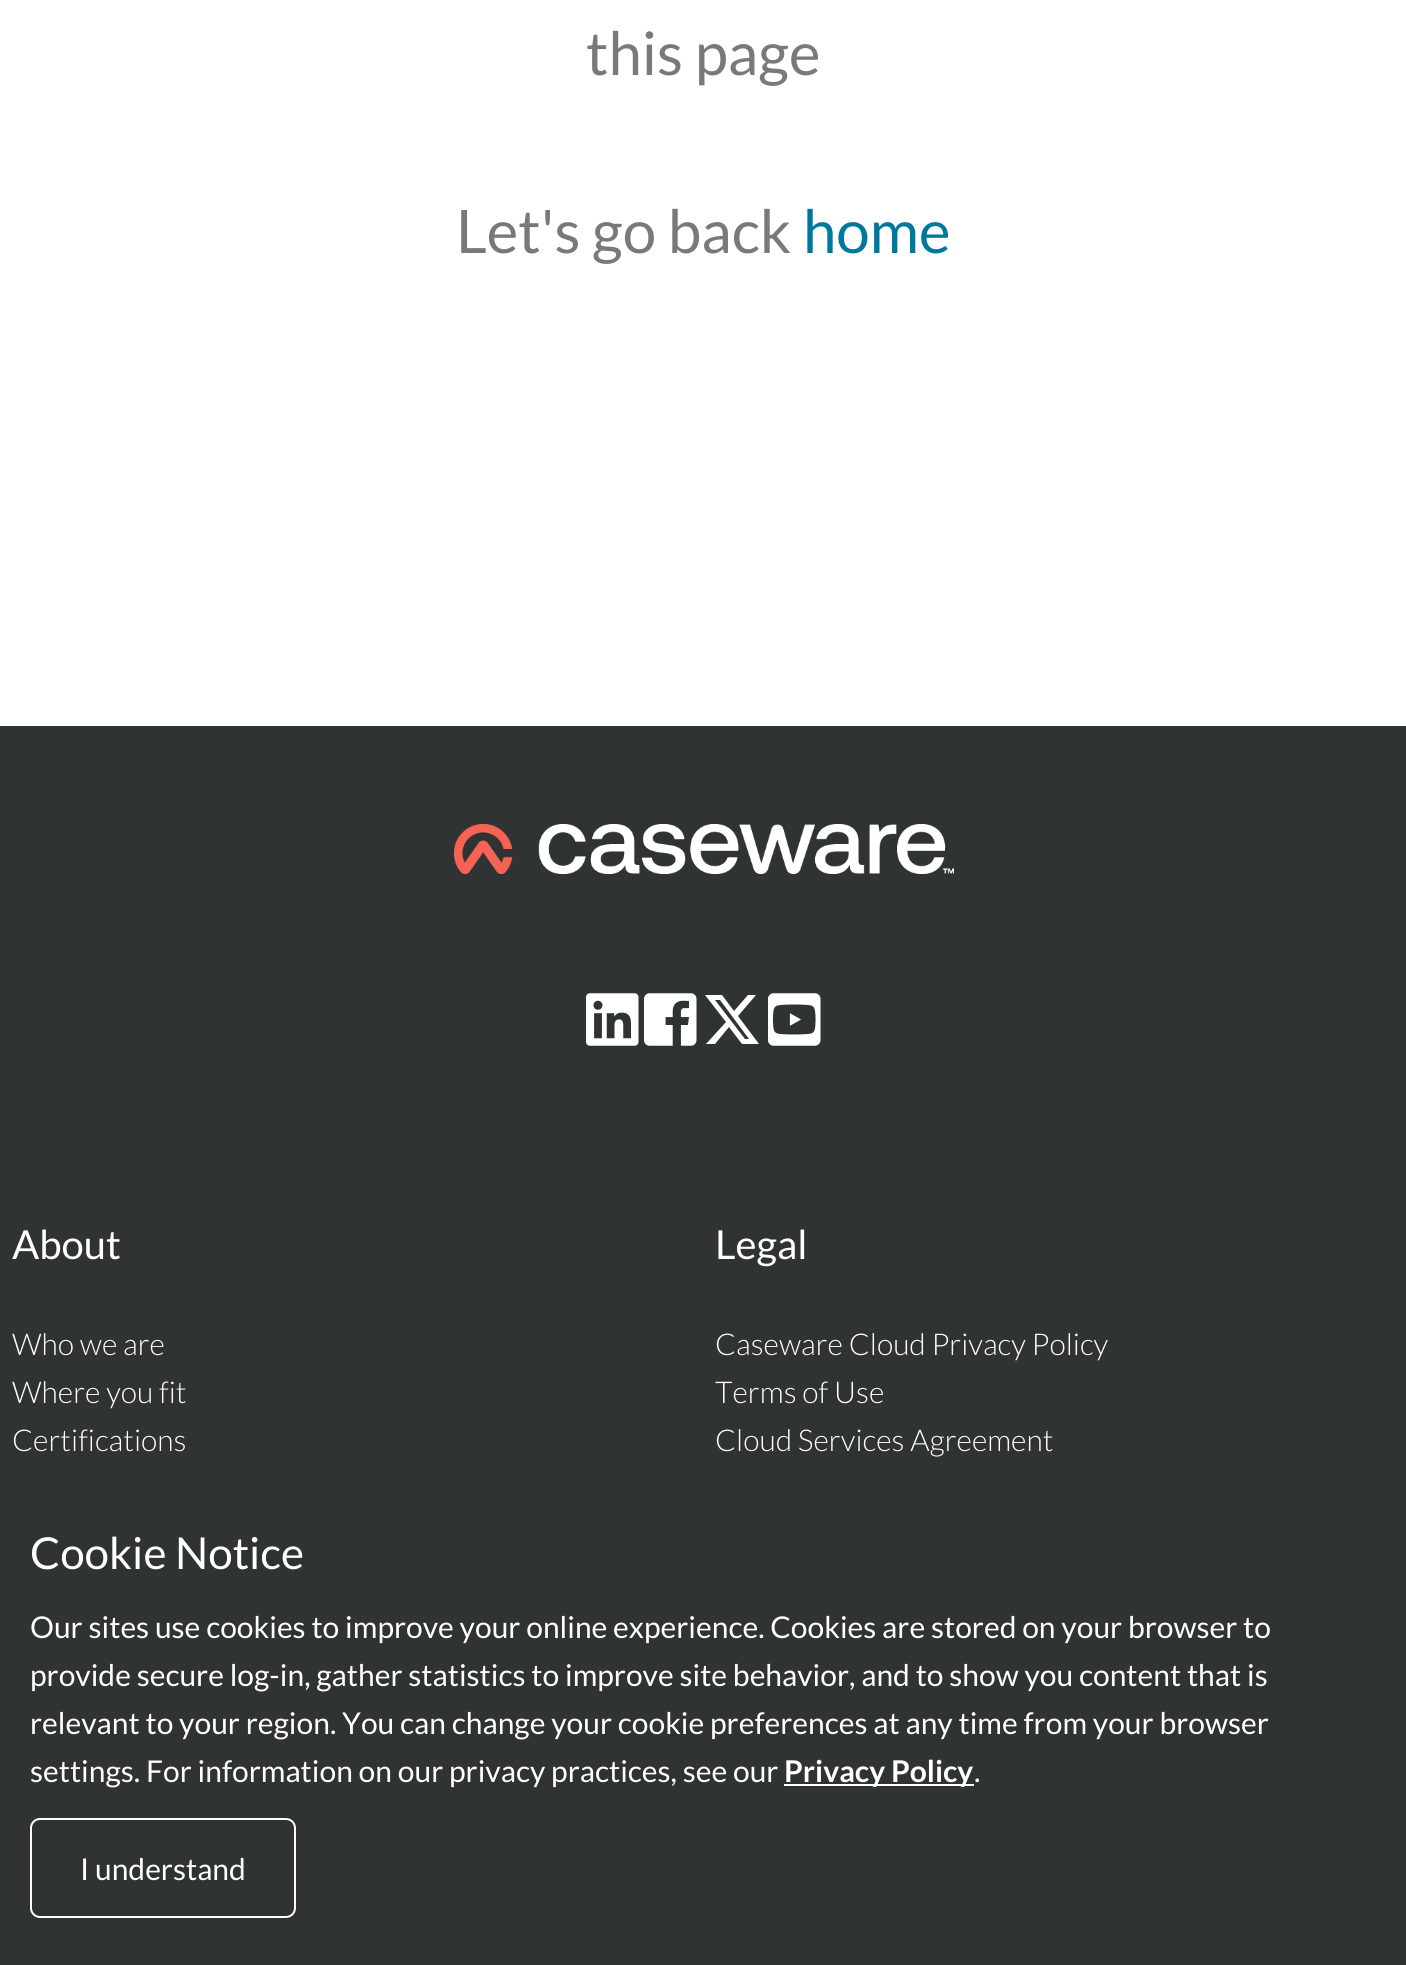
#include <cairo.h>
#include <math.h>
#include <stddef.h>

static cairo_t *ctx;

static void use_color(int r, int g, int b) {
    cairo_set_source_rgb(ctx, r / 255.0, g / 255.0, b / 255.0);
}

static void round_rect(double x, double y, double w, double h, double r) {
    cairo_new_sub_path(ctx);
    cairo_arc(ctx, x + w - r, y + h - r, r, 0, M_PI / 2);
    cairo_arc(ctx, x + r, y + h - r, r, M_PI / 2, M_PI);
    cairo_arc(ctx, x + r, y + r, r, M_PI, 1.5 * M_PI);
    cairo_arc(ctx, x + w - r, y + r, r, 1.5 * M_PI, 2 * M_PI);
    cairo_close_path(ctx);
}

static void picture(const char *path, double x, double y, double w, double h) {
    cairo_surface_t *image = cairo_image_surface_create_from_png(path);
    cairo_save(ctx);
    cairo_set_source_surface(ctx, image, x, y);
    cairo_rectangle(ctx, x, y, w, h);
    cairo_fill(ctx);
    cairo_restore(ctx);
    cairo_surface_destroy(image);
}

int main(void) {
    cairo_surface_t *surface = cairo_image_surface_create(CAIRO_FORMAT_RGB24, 1406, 1965);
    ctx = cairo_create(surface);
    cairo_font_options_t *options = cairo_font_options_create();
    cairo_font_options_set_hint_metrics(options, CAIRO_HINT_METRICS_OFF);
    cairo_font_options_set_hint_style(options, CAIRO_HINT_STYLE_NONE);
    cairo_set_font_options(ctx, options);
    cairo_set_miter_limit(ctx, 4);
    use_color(255, 255, 255);
    cairo_paint(ctx);
    cairo_select_font_face(ctx, "Lato", CAIRO_FONT_SLANT_NORMAL, CAIRO_FONT_WEIGHT_NORMAL);
    cairo_set_font_size(ctx, 60);
    use_color(121, 121, 121);
    cairo_move_to(ctx, 586, 75);
    cairo_show_text(ctx, "this page");
    cairo_move_to(ctx, 456, 253);
    cairo_show_text(ctx, "Let's go back");
    use_color(0, 120, 156);
    cairo_move_to(ctx, 803, 253);
    cairo_show_text(ctx, "home");
    use_color(48, 51, 51);
    cairo_rectangle(ctx, 0, 726, 1406, 1239);
    cairo_fill(ctx);
    picture("img1.png", 454, 824, 500, 50);
    picture("img2.png", 586, 993, 53, 53);
    picture("img3.png", 644, 993, 53, 53);
    use_color(255, 255, 255);
    cairo_new_path(ctx);
    cairo_move_to(ctx, 748, 995);
    cairo_line_to(ctx, 756, 995);
    cairo_line_to(ctx, 748, 995);
    cairo_line_to(ctx, 756, 995);
    cairo_line_to(ctx, 738, 1016);
    cairo_line_to(ctx, 759, 1044);
    cairo_line_to(ctx, 742, 1044);
    cairo_line_to(ctx, 729, 1027);
    cairo_line_to(ctx, 715, 1044);
    cairo_line_to(ctx, 706, 1044);
    cairo_line_to(ctx, 726, 1022);
    cairo_line_to(ctx, 705, 995);
    cairo_line_to(ctx, 722, 995);
    cairo_line_to(ctx, 734, 1011);
    cairo_close_path(ctx);
    cairo_move_to(ctx, 745, 1039);
    cairo_line_to(ctx, 749, 1039);
    cairo_line_to(ctx, 745, 1039);
    cairo_line_to(ctx, 749, 1039);
    cairo_line_to(ctx, 720, 1000);
    cairo_line_to(ctx, 715, 1000);
    cairo_close_path(ctx);
    cairo_fill(ctx);
    picture("img4.png", 768, 993, 53, 53);
    cairo_set_font_size(ctx, 40);
    cairo_move_to(ctx, 12, 1259);
    cairo_show_text(ctx, "About");
    cairo_select_font_face(ctx, "Lato Light", CAIRO_FONT_SLANT_NORMAL, CAIRO_FONT_WEIGHT_NORMAL);
    cairo_set_font_size(ctx, 30);
    cairo_move_to(ctx, 12, 1355);
    cairo_show_text(ctx, "Who we are");
    cairo_move_to(ctx, 12, 1403);
    cairo_show_text(ctx, "Where you fit");
    cairo_move_to(ctx, 12, 1451);
    cairo_show_text(ctx, "Certifications");
    cairo_select_font_face(ctx, "Lato", CAIRO_FONT_SLANT_NORMAL, CAIRO_FONT_WEIGHT_NORMAL);
    cairo_set_font_size(ctx, 40);
    cairo_move_to(ctx, 715, 1259);
    cairo_show_text(ctx, "Legal");
    cairo_select_font_face(ctx, "Lato Light", CAIRO_FONT_SLANT_NORMAL, CAIRO_FONT_WEIGHT_NORMAL);
    cairo_set_font_size(ctx, 30);
    cairo_move_to(ctx, 715, 1355);
    cairo_show_text(ctx, "Caseware Cloud Privacy Policy");
    cairo_move_to(ctx, 715, 1403);
    cairo_show_text(ctx, "Terms of Use");
    cairo_move_to(ctx, 715, 1451);
    cairo_show_text(ctx, "Cloud Services Agreement");
    cairo_select_font_face(ctx, "Lato", CAIRO_FONT_SLANT_NORMAL, CAIRO_FONT_WEIGHT_NORMAL);
    cairo_set_font_size(ctx, 44);
    cairo_move_to(ctx, 30, 1569);
    cairo_show_text(ctx, "Cookie Notice");
    cairo_set_font_size(ctx, 30);
    cairo_move_to(ctx, 30, 1638);
    cairo_show_text(ctx, "Our sites use cookies to improve your online experience. Cookies are stored on your browser to");
    cairo_move_to(ctx, 30, 1686);
    cairo_show_text(ctx, "provide secure log-in, gather statistics to improve site behavior, and to show you content that is");
    cairo_move_to(ctx, 30, 1734);
    cairo_show_text(ctx, "relevant to your region. You can change your cookie preferences at any time from your browser");
    cairo_move_to(ctx, 30, 1782);
    cairo_show_text(ctx, "settings. For information on our privacy practices, see our");
    cairo_rectangle(ctx, 784, 1784, 190, 2);
    cairo_fill(ctx);
    cairo_select_font_face(ctx, "Lato", CAIRO_FONT_SLANT_NORMAL, CAIRO_FONT_WEIGHT_BOLD);
    cairo_move_to(ctx, 784, 1782);
    cairo_show_text(ctx, "Privacy Policy");
    cairo_select_font_face(ctx, "Lato", CAIRO_FONT_SLANT_NORMAL, CAIRO_FONT_WEIGHT_NORMAL);
    cairo_move_to(ctx, 974, 1782);
    cairo_show_text(ctx, ".");
    round_rect(31, 1819, 264, 98, 9);
    cairo_stroke(ctx);
    cairo_move_to(ctx, 80, 1880);
    cairo_show_text(ctx, "I understand");
    cairo_surface_write_to_png(surface, "result.png");
    cairo_font_options_destroy(options);
    cairo_destroy(ctx);
    cairo_surface_destroy(surface);
    return 0;
}
